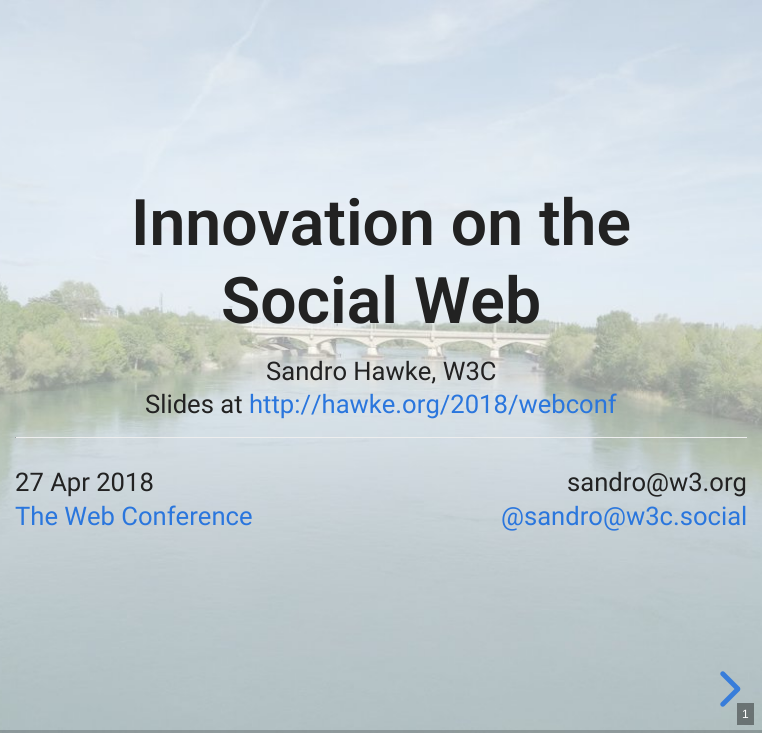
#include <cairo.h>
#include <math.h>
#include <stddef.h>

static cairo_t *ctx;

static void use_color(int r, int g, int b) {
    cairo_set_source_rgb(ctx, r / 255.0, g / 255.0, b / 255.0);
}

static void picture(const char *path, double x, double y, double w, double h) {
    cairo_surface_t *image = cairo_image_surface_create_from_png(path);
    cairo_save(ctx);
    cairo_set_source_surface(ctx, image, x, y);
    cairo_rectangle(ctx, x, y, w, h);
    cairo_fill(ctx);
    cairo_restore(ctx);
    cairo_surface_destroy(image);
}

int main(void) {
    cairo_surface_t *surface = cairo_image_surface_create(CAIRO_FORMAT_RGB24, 762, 733);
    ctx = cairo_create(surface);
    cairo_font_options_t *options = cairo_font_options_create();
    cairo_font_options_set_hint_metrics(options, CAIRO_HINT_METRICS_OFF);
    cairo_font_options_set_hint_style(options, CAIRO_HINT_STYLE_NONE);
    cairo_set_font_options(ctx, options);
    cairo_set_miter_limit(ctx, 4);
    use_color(255, 255, 255);
    cairo_paint(ctx);
    picture("img1.png", 0, 0, 762, 733);
    cairo_select_font_face(ctx, "Roboto SemiBold", CAIRO_FONT_SLANT_NORMAL, CAIRO_FONT_WEIGHT_NORMAL);
    cairo_set_font_size(ctx, 64.25);
    use_color(34, 34, 34);
    cairo_move_to(ctx, 131, 245);
    cairo_show_text(ctx, "Innovation on the");
    cairo_move_to(ctx, 221, 323);
    cairo_show_text(ctx, "Social Web");
    cairo_select_font_face(ctx, "Roboto", CAIRO_FONT_SLANT_NORMAL, CAIRO_FONT_WEIGHT_NORMAL);
    cairo_set_font_size(ctx, 25.6);
    cairo_move_to(ctx, 266, 380);
    cairo_show_text(ctx, "Sandro Hawke, W3C");
    cairo_move_to(ctx, 145, 413);
    cairo_show_text(ctx, "Slides at");
    use_color(42, 118, 221);
    cairo_move_to(ctx, 249, 413);
    cairo_show_text(ctx, "http://hawke.org/2018/webconf");
    use_color(238, 238, 238);
    cairo_rectangle(ctx, 15, 437, 732, 1);
    cairo_fill(ctx);
    use_color(159, 159, 159);
    cairo_rectangle(ctx, 15, 437, 1, 1);
    cairo_fill(ctx);
    use_color(34, 34, 34);
    cairo_move_to(ctx, 15, 491);
    cairo_show_text(ctx, "27 Apr 2018");
    use_color(42, 118, 221);
    cairo_move_to(ctx, 15, 525);
    cairo_show_text(ctx, "The Web Conference");
    use_color(34, 34, 34);
    cairo_move_to(ctx, 567, 491);
    cairo_show_text(ctx, "sandro@w3.org");
    use_color(42, 118, 221);
    cairo_move_to(ctx, 501, 525);
    cairo_show_text(ctx, "@sandro@w3c.social");
    use_color(56, 125, 218);
    cairo_new_path(ctx);
    cairo_move_to(ctx, 736, 690.5);
    cairo_line_to(ctx, 721, 675.5);
    cairo_curve_to(ctx, 720, 674.5, 720, 673, 721, 672);
    cairo_curve_to(ctx, 722, 671, 723.5, 671, 724.5, 672);
    cairo_line_to(ctx, 739.5, 687);
    cairo_curve_to(ctx, 740.5, 688, 740.5, 689.5, 739.5, 690.5);
    cairo_curve_to(ctx, 738.5, 691.5, 737, 691.5, 736, 690.5);
    cairo_close_path(ctx);
    cairo_fill(ctx);
    cairo_new_path(ctx);
    cairo_move_to(ctx, 739.5, 691);
    cairo_line_to(ctx, 724.5, 706);
    cairo_curve_to(ctx, 723.5, 707, 722, 707, 721, 706);
    cairo_curve_to(ctx, 720, 705, 720, 703.5, 721, 702.5);
    cairo_line_to(ctx, 736, 687.5);
    cairo_curve_to(ctx, 737, 686.5, 738.5, 686.5, 739.5, 687.5);
    cairo_curve_to(ctx, 740.5, 688.5, 740.5, 690, 739.5, 691);
    cairo_close_path(ctx);
    cairo_fill(ctx);
    cairo_set_source_rgba(ctx, 0, 0, 0, 0.4);
    cairo_rectangle(ctx, 737, 703, 17, 22);
    cairo_fill(ctx);
    cairo_select_font_face(ctx, "Liberation Sans", CAIRO_FONT_SLANT_NORMAL, CAIRO_FONT_WEIGHT_NORMAL);
    cairo_set_font_size(ctx, 12);
    use_color(255, 255, 255);
    cairo_move_to(ctx, 742, 718);
    cairo_show_text(ctx, "1");
    cairo_set_source_rgba(ctx, 0, 0, 0, 0.2);
    cairo_rectangle(ctx, 0, 730, 762, 3);
    cairo_fill(ctx);
    cairo_surface_write_to_png(surface, "result.png");
    cairo_font_options_destroy(options);
    cairo_destroy(ctx);
    cairo_surface_destroy(surface);
    return 0;
}
